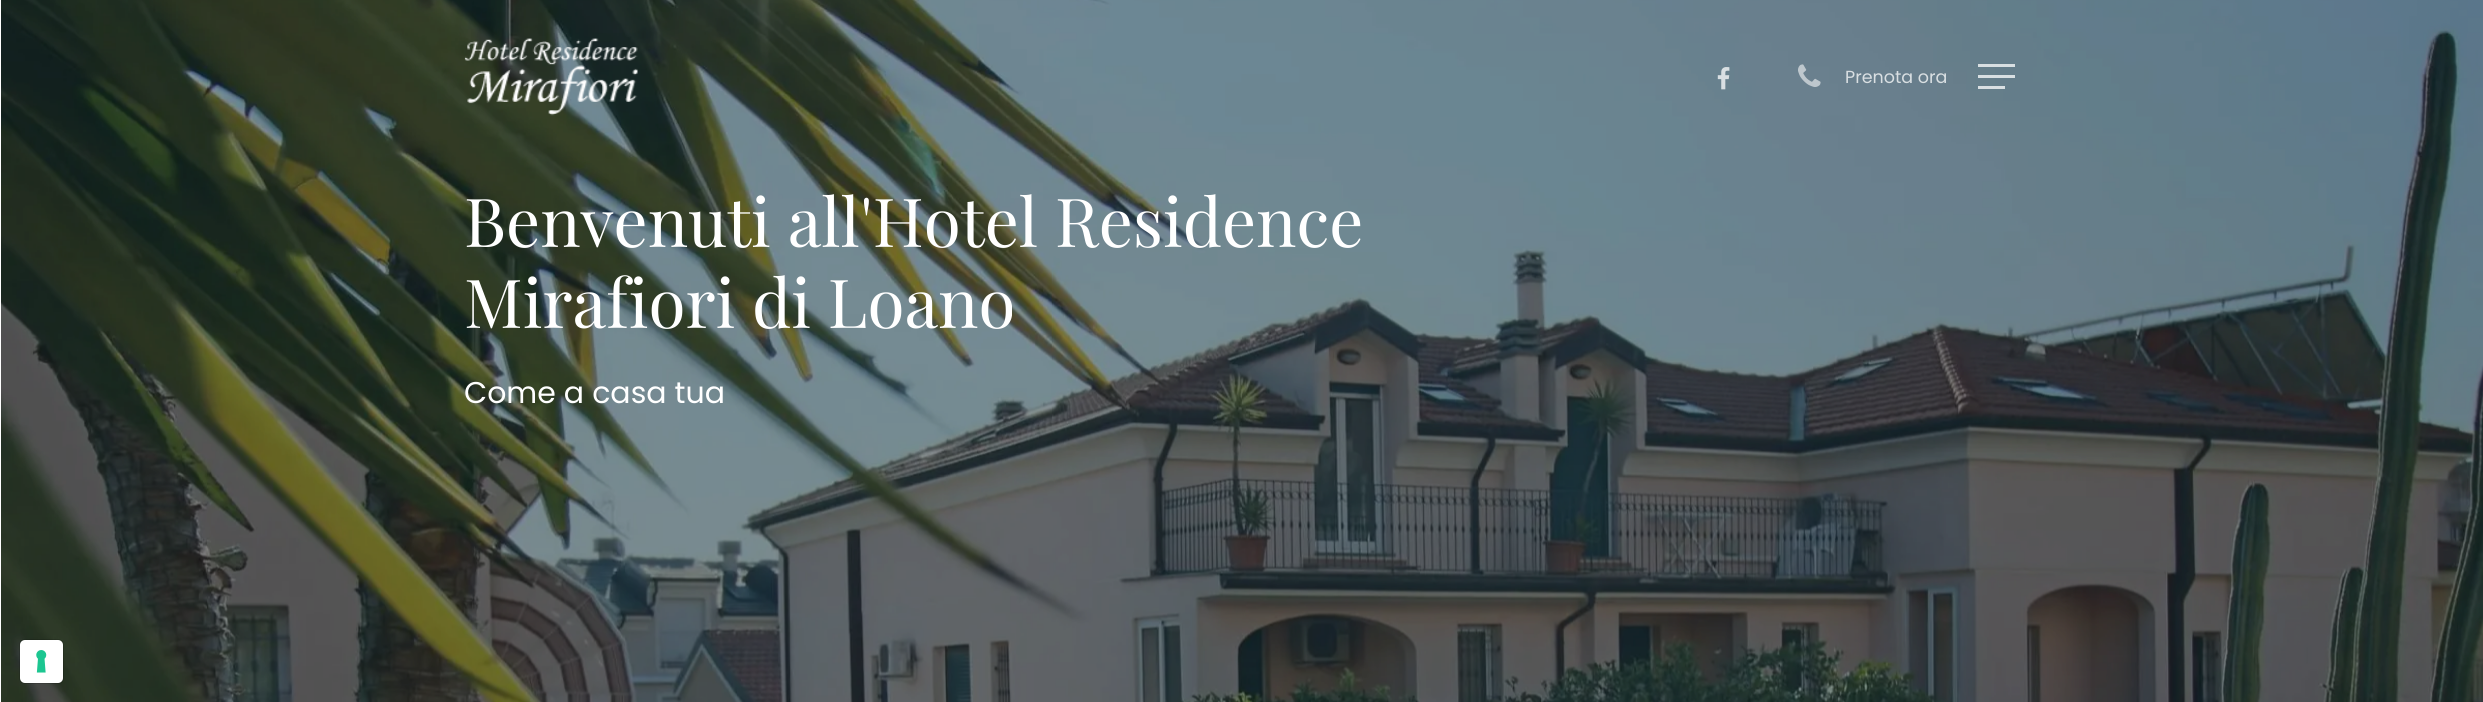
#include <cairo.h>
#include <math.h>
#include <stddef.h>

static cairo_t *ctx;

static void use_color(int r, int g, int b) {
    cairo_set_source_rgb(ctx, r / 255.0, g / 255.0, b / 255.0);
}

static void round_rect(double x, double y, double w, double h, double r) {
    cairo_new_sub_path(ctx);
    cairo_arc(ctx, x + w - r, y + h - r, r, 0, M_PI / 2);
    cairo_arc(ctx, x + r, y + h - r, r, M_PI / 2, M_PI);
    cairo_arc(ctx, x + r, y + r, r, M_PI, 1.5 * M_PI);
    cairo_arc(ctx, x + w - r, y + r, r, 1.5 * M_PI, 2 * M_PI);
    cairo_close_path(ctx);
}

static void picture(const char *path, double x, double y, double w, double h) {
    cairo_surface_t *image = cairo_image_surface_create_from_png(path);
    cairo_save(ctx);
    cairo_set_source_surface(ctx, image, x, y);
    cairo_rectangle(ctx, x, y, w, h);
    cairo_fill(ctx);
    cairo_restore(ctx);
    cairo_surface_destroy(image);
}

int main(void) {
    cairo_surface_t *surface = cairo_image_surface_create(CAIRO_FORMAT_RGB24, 2483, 702);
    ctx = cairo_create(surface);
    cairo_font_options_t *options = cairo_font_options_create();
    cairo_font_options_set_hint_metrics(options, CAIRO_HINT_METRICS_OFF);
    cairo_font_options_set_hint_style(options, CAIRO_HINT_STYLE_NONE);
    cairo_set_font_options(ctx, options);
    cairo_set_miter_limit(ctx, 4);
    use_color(255, 255, 255);
    cairo_paint(ctx);
    picture("img4.png", 1, 0, 2482, 702);
    picture("img1.png", 464, 38, 174, 78);
    picture("img2.png", 1717, 67, 13, 23);
    picture("img3.png", 1798, 64, 23, 23);
    cairo_select_font_face(ctx, "Poppins", CAIRO_FONT_SLANT_NORMAL, CAIRO_FONT_WEIGHT_NORMAL);
    cairo_set_font_size(ctx, 17.5);
    use_color(217, 223, 226);
    cairo_move_to(ctx, 1845, 83);
    cairo_show_text(ctx, "Prenota ora");
    use_color(216, 223, 226);
    cairo_rectangle(ctx, 1978, 64, 37, 3);
    cairo_fill(ctx);
    use_color(217, 223, 226);
    cairo_rectangle(ctx, 1978, 86, 27, 3);
    cairo_fill(ctx);
    use_color(216, 223, 226);
    cairo_rectangle(ctx, 1978, 75, 37, 3);
    cairo_fill(ctx);
    cairo_select_font_face(ctx, "Playfair Display", CAIRO_FONT_SLANT_NORMAL, CAIRO_FONT_WEIGHT_NORMAL);
    cairo_set_font_size(ctx, 67.5);
    use_color(255, 255, 255);
    cairo_move_to(ctx, 464, 247);
    cairo_show_text(ctx, "Benvenuti all'Hotel Residence");
    cairo_move_to(ctx, 464, 328);
    cairo_show_text(ctx, "Mirafiori di Loano");
    cairo_select_font_face(ctx, "Poppins", CAIRO_FONT_SLANT_NORMAL, CAIRO_FONT_WEIGHT_NORMAL);
    cairo_set_font_size(ctx, 30);
    cairo_move_to(ctx, 464, 403);
    cairo_show_text(ctx, "Come a casa tua");
    round_rect(19.5, 639.5, 44, 44, 5.5);
    cairo_set_source_rgba(ctx, 0, 0, 0, 0.15);
    cairo_set_line_width(ctx, 1);
    cairo_stroke(ctx);
    use_color(255, 255, 255);
    round_rect(20, 640, 43, 43, 5);
    cairo_fill(ctx);
    picture("img5.png", 36, 650, 11, 23);
    cairo_surface_write_to_png(surface, "result.png");
    cairo_font_options_destroy(options);
    cairo_destroy(ctx);
    cairo_surface_destroy(surface);
    return 0;
}
